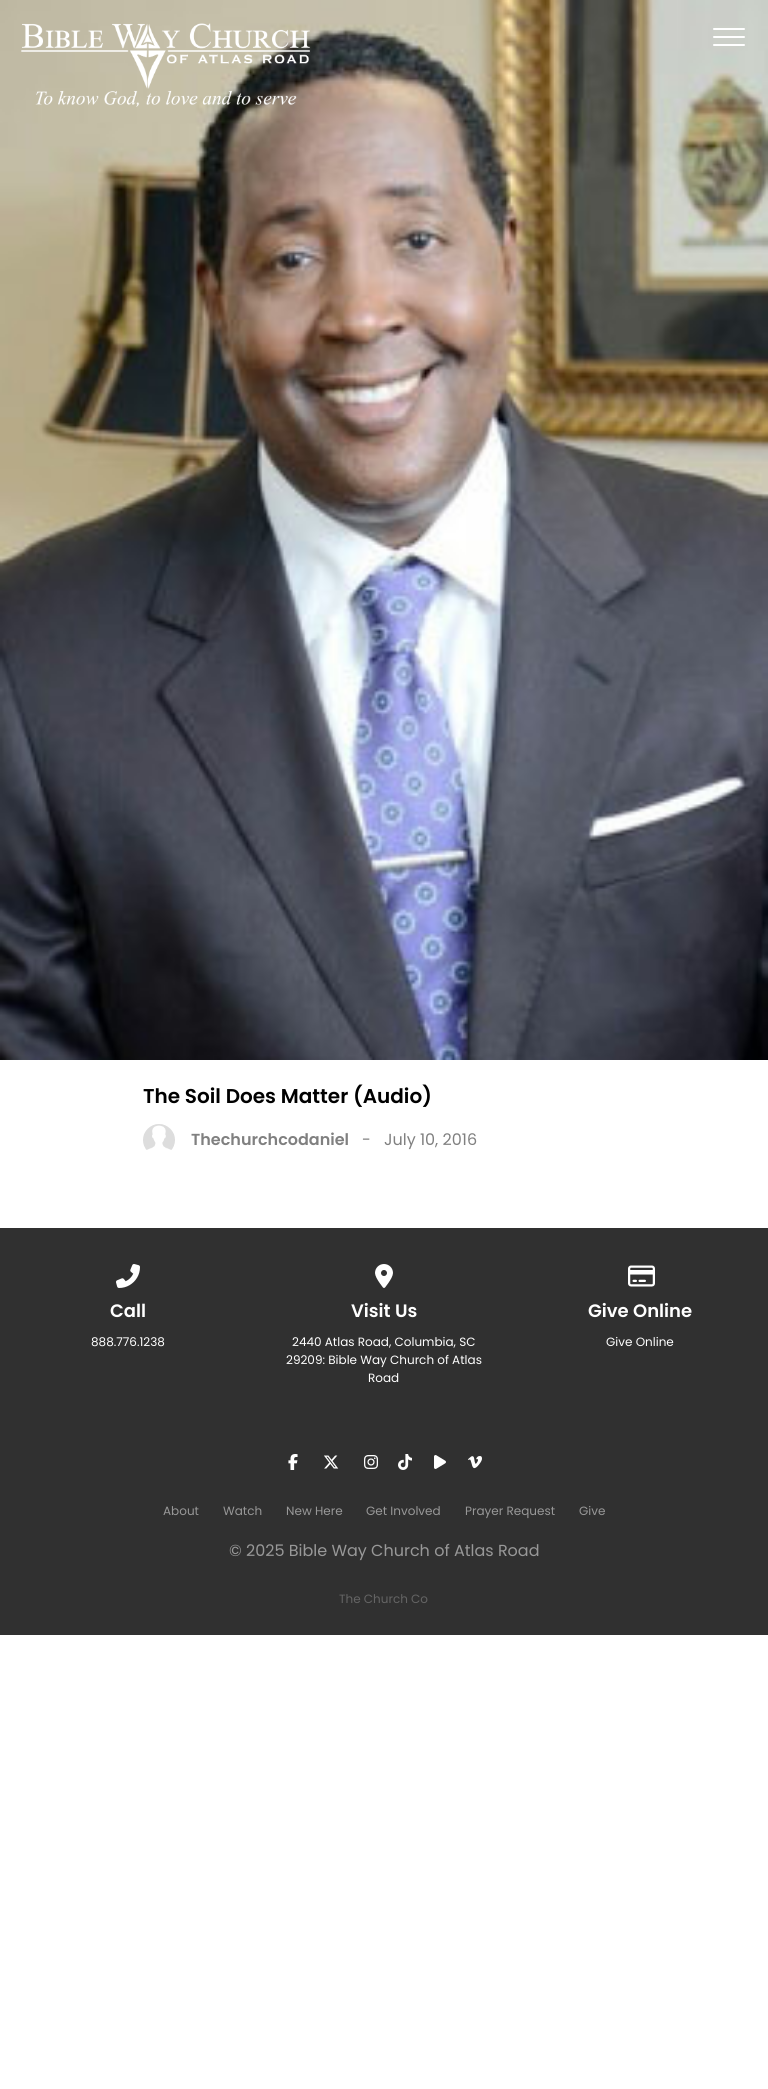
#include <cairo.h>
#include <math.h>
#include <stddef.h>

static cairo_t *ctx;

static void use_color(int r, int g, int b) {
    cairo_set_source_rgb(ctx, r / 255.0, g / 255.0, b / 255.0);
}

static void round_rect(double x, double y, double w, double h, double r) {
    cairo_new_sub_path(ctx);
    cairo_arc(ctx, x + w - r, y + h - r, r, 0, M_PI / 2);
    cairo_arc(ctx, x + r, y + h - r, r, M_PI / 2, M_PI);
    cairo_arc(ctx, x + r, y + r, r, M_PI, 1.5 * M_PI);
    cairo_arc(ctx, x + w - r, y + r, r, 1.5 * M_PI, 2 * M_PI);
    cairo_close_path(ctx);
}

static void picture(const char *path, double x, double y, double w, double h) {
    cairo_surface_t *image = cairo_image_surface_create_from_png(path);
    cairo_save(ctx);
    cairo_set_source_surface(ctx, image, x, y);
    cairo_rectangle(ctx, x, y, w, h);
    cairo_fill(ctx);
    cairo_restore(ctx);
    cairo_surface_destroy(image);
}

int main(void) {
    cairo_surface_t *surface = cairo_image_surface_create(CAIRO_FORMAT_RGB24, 768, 2089);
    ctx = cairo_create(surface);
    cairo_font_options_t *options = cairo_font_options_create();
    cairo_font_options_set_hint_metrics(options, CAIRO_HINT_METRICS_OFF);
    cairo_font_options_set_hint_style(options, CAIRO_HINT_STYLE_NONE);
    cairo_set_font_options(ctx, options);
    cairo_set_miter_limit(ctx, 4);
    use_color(255, 255, 255);
    cairo_paint(ctx);
    picture("img1.png", 0, 0, 768, 1060);
    picture("img2.png", 0, 29, 743, 1011);
    picture("img3.png", 21, 23, 289, 84);
    use_color(255, 255, 255);
    round_rect(713, 28, 32, 2, 1);
    cairo_fill(ctx);
    round_rect(713, 36, 32, 2, 1);
    cairo_fill(ctx);
    round_rect(713, 44, 32, 2, 1);
    cairo_fill(ctx);
    cairo_select_font_face(ctx, "Poppins SemiBold", CAIRO_FONT_SLANT_NORMAL, CAIRO_FONT_WEIGHT_NORMAL);
    cairo_set_font_size(ctx, 20);
    use_color(0, 0, 0);
    cairo_move_to(ctx, 143, 1103);
    cairo_show_text(ctx, "The Soil Does Matter (Audio)");
    picture("img4.png", 143, 1124, 32, 26);
    cairo_set_font_size(ctx, 16);
    use_color(128, 128, 128);
    cairo_move_to(ctx, 191, 1145);
    cairo_show_text(ctx, "Thechurchcodaniel");
    cairo_select_font_face(ctx, "Poppins", CAIRO_FONT_SLANT_NORMAL, CAIRO_FONT_WEIGHT_NORMAL);
    cairo_move_to(ctx, 362, 1145);
    cairo_show_text(ctx, "-");
    cairo_move_to(ctx, 384, 1145);
    cairo_show_text(ctx, "July 10, 2016");
    use_color(48, 48, 48);
    cairo_rectangle(ctx, 0, 1228, 768, 407);
    cairo_fill(ctx);
    picture("img5.png", 116, 1264, 24, 24);
    cairo_select_font_face(ctx, "Poppins SemiBold", CAIRO_FONT_SLANT_NORMAL, CAIRO_FONT_WEIGHT_NORMAL);
    cairo_set_font_size(ctx, 18);
    use_color(255, 255, 255);
    cairo_move_to(ctx, 110, 1317);
    cairo_show_text(ctx, "Call");
    cairo_select_font_face(ctx, "Poppins", CAIRO_FONT_SLANT_NORMAL, CAIRO_FONT_WEIGHT_NORMAL);
    cairo_set_font_size(ctx, 12);
    cairo_move_to(ctx, 91, 1346);
    cairo_show_text(ctx, "888.776.1238");
    picture("img6.png", 375, 1264, 18, 24);
    cairo_select_font_face(ctx, "Poppins SemiBold", CAIRO_FONT_SLANT_NORMAL, CAIRO_FONT_WEIGHT_NORMAL);
    cairo_set_font_size(ctx, 18);
    cairo_move_to(ctx, 351, 1317);
    cairo_show_text(ctx, "Visit Us");
    cairo_select_font_face(ctx, "Poppins", CAIRO_FONT_SLANT_NORMAL, CAIRO_FONT_WEIGHT_NORMAL);
    cairo_set_font_size(ctx, 12);
    cairo_move_to(ctx, 292, 1346);
    cairo_show_text(ctx, "2440 Atlas Road, Columbia, SC");
    cairo_move_to(ctx, 286, 1364);
    cairo_show_text(ctx, "29209: Bible Way Church of Atlas");
    cairo_move_to(ctx, 368, 1382);
    cairo_show_text(ctx, "Road");
    picture("img7.png", 628, 1265, 27, 22);
    cairo_select_font_face(ctx, "Poppins SemiBold", CAIRO_FONT_SLANT_NORMAL, CAIRO_FONT_WEIGHT_NORMAL);
    cairo_set_font_size(ctx, 18);
    cairo_move_to(ctx, 588, 1317);
    cairo_show_text(ctx, "Give Online");
    cairo_select_font_face(ctx, "Poppins", CAIRO_FONT_SLANT_NORMAL, CAIRO_FONT_WEIGHT_NORMAL);
    cairo_set_font_size(ctx, 12);
    cairo_move_to(ctx, 606, 1346);
    cairo_show_text(ctx, "Give Online");
    picture("img8.png", 288, 1454, 10, 16);
    picture("img9.png", 324, 1455, 15, 14);
    picture("img10.png", 364, 1455, 14, 14);
    picture("img11.png", 398, 1454, 14, 16);
    picture("img12.png", 434, 1455, 12, 14);
    picture("img13.png", 468, 1456, 14, 13);
    use_color(152, 152, 152);
    cairo_move_to(ctx, 163, 1515);
    cairo_show_text(ctx, "About");
    cairo_move_to(ctx, 223, 1515);
    cairo_show_text(ctx, "Watch");
    cairo_move_to(ctx, 286, 1515);
    cairo_show_text(ctx, "New Here");
    cairo_move_to(ctx, 366, 1515);
    cairo_show_text(ctx, "Get Involved");
    cairo_move_to(ctx, 465, 1515);
    cairo_show_text(ctx, "Prayer Request");
    cairo_move_to(ctx, 579, 1515);
    cairo_show_text(ctx, "Give");
    cairo_set_font_size(ctx, 16);
    cairo_move_to(ctx, 229, 1556);
    cairo_show_text(ctx, "© 2025 Bible Way Church of Atlas Road");
    cairo_set_font_size(ctx, 12);
    use_color(100, 100, 100);
    cairo_move_to(ctx, 339, 1603);
    cairo_show_text(ctx, "The Church Co");
    cairo_surface_write_to_png(surface, "result.png");
    cairo_font_options_destroy(options);
    cairo_destroy(ctx);
    cairo_surface_destroy(surface);
    return 0;
}
